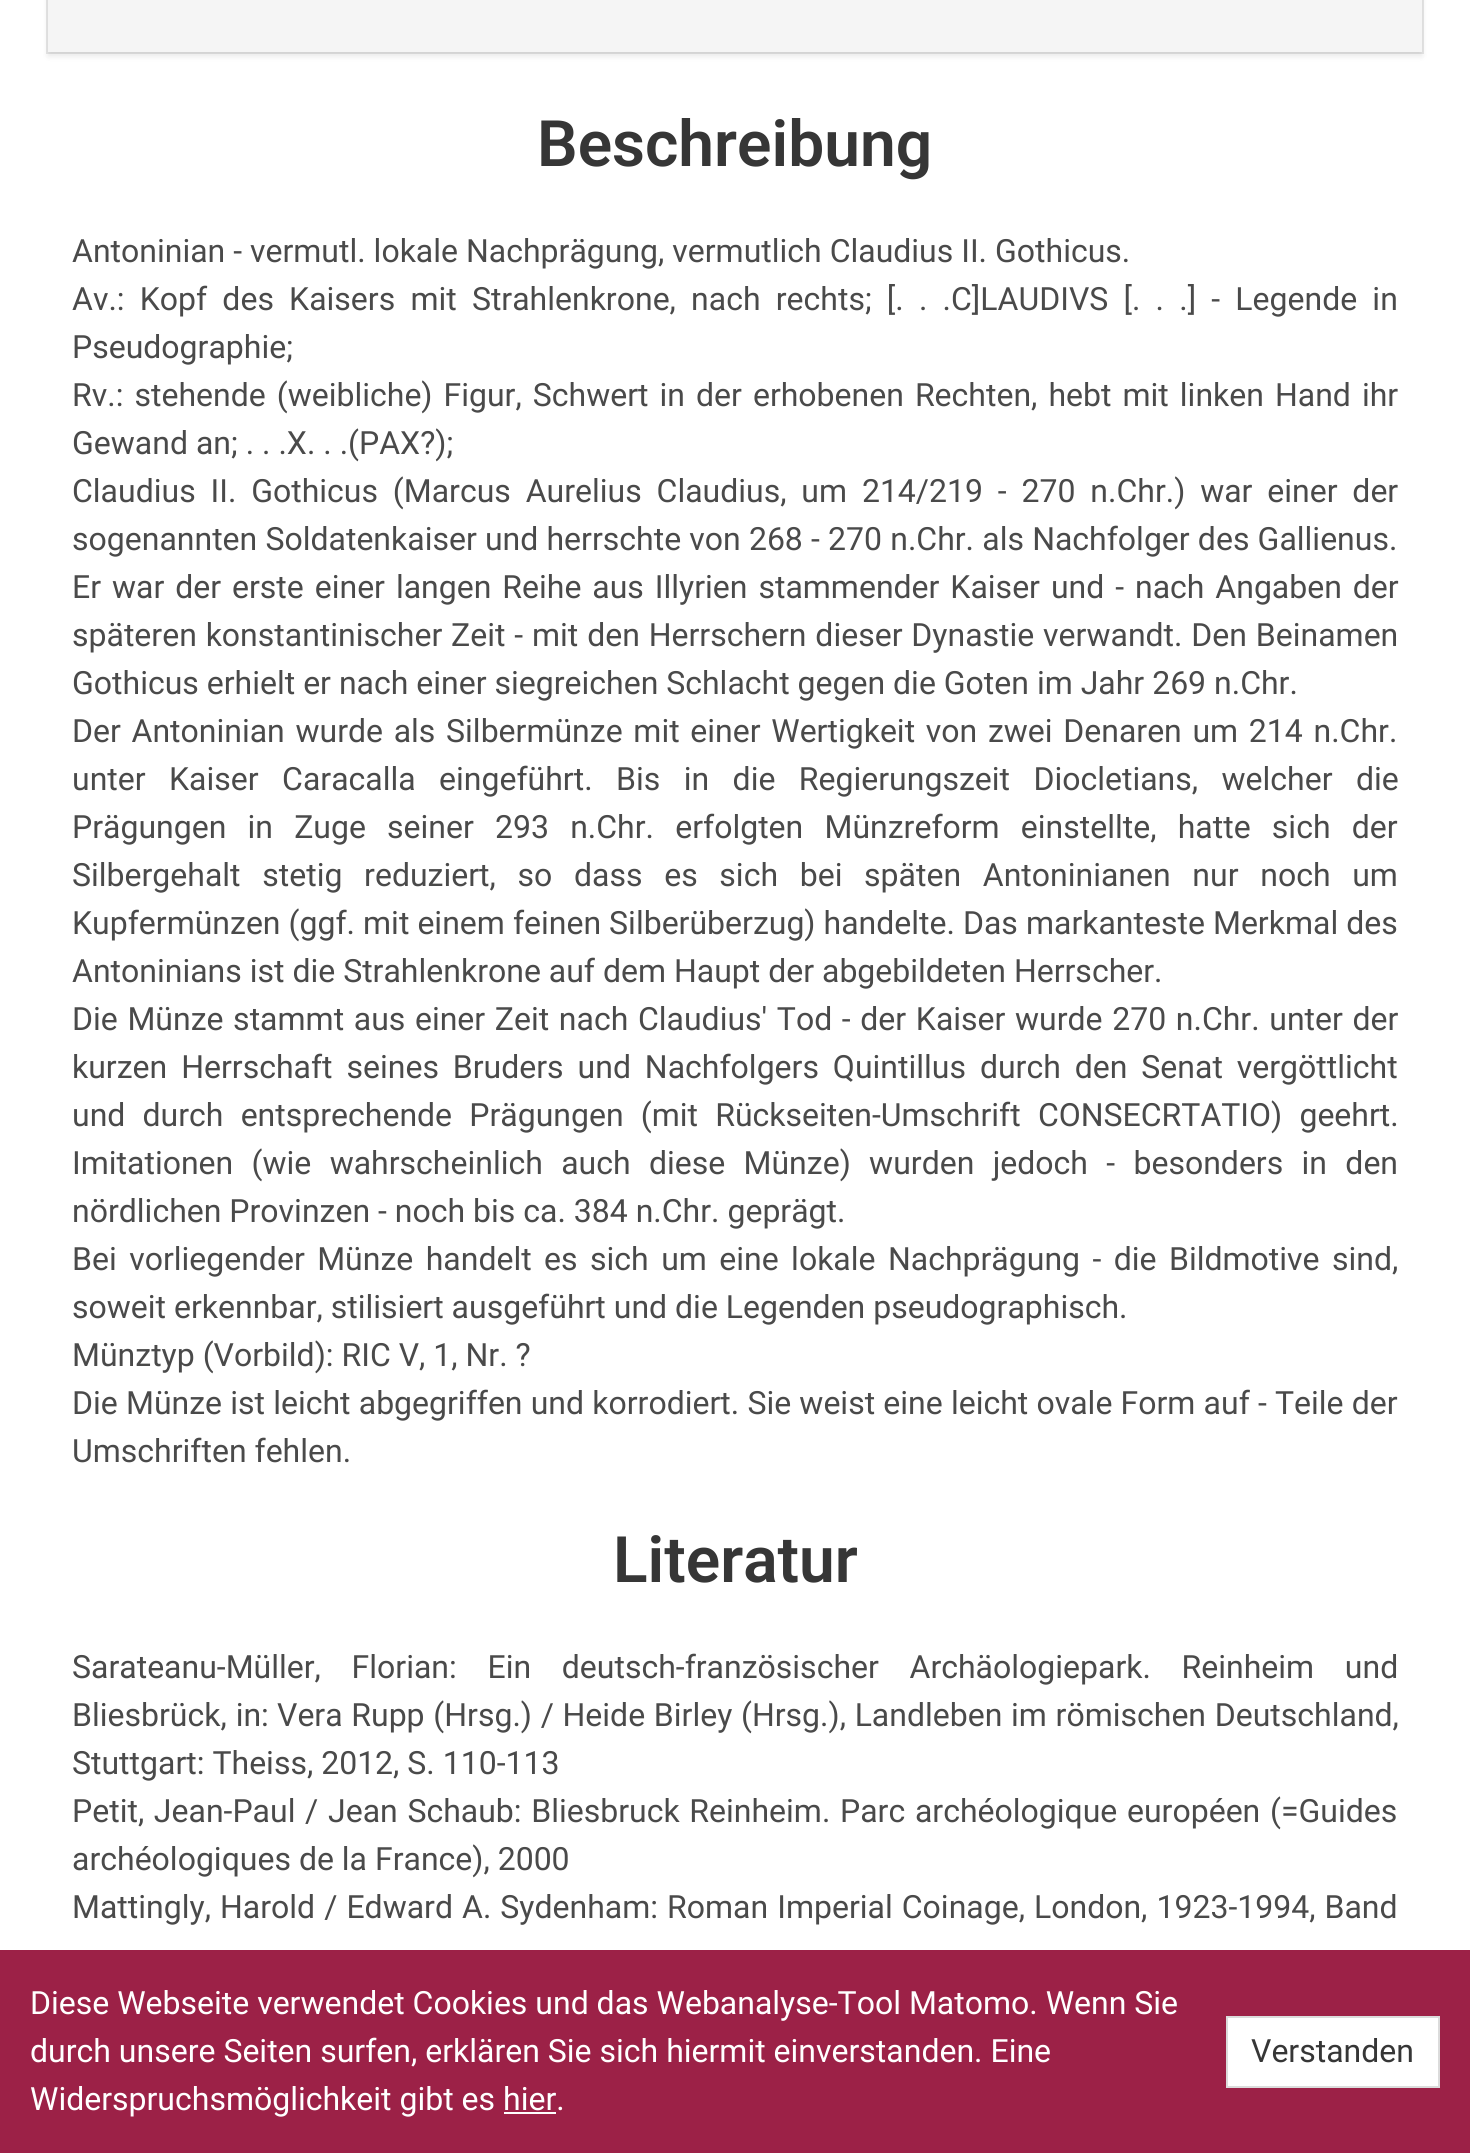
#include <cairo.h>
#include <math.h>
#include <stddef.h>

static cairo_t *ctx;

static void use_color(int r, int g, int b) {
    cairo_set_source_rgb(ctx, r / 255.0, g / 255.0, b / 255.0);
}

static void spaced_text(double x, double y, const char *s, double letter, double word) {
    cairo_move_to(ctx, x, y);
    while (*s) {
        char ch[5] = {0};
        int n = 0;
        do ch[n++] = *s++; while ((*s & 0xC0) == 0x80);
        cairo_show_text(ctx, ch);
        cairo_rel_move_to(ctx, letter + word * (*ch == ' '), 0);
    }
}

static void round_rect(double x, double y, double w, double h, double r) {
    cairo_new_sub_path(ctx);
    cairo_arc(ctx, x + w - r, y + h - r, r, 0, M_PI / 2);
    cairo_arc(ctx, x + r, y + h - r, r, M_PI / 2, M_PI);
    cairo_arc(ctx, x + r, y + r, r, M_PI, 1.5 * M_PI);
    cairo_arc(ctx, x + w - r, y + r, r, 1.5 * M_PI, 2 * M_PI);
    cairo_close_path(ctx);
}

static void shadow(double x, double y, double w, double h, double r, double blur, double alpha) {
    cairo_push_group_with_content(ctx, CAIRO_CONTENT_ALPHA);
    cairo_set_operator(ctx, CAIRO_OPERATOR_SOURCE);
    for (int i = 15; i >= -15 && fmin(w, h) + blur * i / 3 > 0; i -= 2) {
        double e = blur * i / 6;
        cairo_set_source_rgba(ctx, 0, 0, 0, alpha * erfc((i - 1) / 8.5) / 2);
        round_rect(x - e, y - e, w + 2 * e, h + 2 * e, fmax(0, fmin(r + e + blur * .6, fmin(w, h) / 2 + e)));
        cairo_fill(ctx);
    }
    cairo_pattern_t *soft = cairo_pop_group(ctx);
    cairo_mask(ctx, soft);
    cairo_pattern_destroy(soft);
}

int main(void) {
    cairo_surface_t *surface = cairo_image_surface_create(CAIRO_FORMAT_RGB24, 1470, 2153);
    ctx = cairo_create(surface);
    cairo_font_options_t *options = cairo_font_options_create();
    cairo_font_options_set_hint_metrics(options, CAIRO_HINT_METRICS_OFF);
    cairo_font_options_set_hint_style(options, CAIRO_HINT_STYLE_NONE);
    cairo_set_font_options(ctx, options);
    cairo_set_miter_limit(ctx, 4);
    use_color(255, 255, 255);
    cairo_paint(ctx);
    cairo_rectangle(ctx, 47, -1, 1376, 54);
    use_color(231, 231, 231);
    cairo_stroke(ctx);
    use_color(10, 10, 10);
    shadow(48, -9, 1374, 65, 0, 3, 0.1);
    use_color(245, 245, 245);
    cairo_rectangle(ctx, 48, 0, 1374, 52);
    cairo_fill(ctx);
    cairo_select_font_face(ctx, "Roboto SemiBold", CAIRO_FONT_SLANT_NORMAL, CAIRO_FONT_WEIGHT_NORMAL);
    cairo_set_font_size(ctx, 64);
    use_color(54, 54, 54);
    cairo_move_to(ctx, 537, 166);
    cairo_show_text(ctx, "Beschreibung");
    cairo_select_font_face(ctx, "Roboto", CAIRO_FONT_SLANT_NORMAL, CAIRO_FONT_WEIGHT_NORMAL);
    cairo_set_font_size(ctx, 32);
    use_color(74, 74, 74);
    cairo_move_to(ctx, 72, 262);
    cairo_show_text(ctx, "Antoninian - vermutl. lokale Nachprägung, vermutlich Claudius II. Gothicus.");
    spaced_text(72, 310, "Av.: Kopf des Kaisers mit Strahlenkrone, nach rechts; [. . .C]LAUDIVS [. . .] - Legende in", 0, 7.25);
    cairo_move_to(ctx, 72, 358);
    cairo_show_text(ctx, "Pseudographie;");
    spaced_text(72, 406, "Rv.: stehende (weibliche) Figur, Schwert in der erhobenen Rechten, hebt mit linken Hand ihr", 0, 3.1);
    cairo_move_to(ctx, 72, 454);
    cairo_show_text(ctx, "Gewand an; . . .X. . .(PAX?);");
    spaced_text(72, 502, "Claudius II. Gothicus (Marcus Aurelius Claudius, um 214/219 - 270 n.Chr.) war einer der", 0, 6.9);
    spaced_text(72, 550, "sogenannten Soldatenkaiser und herrschte von 268 - 270 n.Chr. als Nachfolger des Gallienus.", 0, 0.25);
    spaced_text(72, 598, "Er war der erste einer langen Reihe aus Illyrien stammender Kaiser und - nach Angaben der", 0, 3);
    spaced_text(72, 646, "späteren konstantinischer Zeit - mit den Herrschern dieser Dynastie verwandt. Den Beinamen", 0, 0.9);
    cairo_move_to(ctx, 72, 694);
    cairo_show_text(ctx, "Gothicus erhielt er nach einer siegreichen Schlacht gegen die Goten im Jahr 269 n.Chr.");
    spaced_text(72, 742, "Der Antoninian wurde als Silbermünze mit einer Wertigkeit von zwei Denaren um 214 n.Chr.", 0, 2.75);
    spaced_text(72, 790, "unter Kaiser Caracalla eingeführt. Bis in die Regierungszeit Diocletians, welcher die", 0, 15.5);
    spaced_text(72, 838, "Prägungen in Zuge seiner 293 n.Chr. erfolgten Münzreform einstellte, hatte sich der", 0, 13.25);
    spaced_text(72, 886, "Silbergehalt stetig reduziert, so dass es sich bei späten Antoninianen nur noch um", 0, 13.75);
    spaced_text(72, 934, "Kupfermünzen (ggf. mit einem feinen Silberüberzug) handelte. Das markanteste Merkmal des", 0, 0.1);
    cairo_move_to(ctx, 72, 982);
    cairo_show_text(ctx, "Antoninians ist die Strahlenkrone auf dem Haupt der abgebildeten Herrscher.");
    spaced_text(72, 1030, "Die Münze stammt aus einer Zeit nach Claudius' Tod - der Kaiser wurde 270 n.Chr. unter der", 0, 1.7);
    spaced_text(72, 1078, "kurzen Herrschaft seines Bruders und Nachfolgers Quintillus durch den Senat vergöttlicht", 0, 6);
    spaced_text(72, 1126, "und durch entsprechende Prägungen (mit Rückseiten-Umschrift CONSECRTATIO) geehrt.", 0, 9.25);
    spaced_text(72, 1174, "Imitationen (wie wahrscheinlich auch diese Münze) wurden jedoch - besonders in den", 0, 10.4);
    cairo_move_to(ctx, 72, 1222);
    cairo_show_text(ctx, "nördlichen Provinzen - noch bis ca. 384 n.Chr. geprägt.");
    spaced_text(72, 1270, "Bei vorliegender Münze handelt es sich um eine lokale Nachprägung - die Bildmotive sind,", 0, 4.5);
    cairo_move_to(ctx, 72, 1318);
    cairo_show_text(ctx, "soweit erkennbar, stilisiert ausgeführt und die Legenden pseudographisch.");
    cairo_move_to(ctx, 72, 1366);
    cairo_show_text(ctx, "Münztyp (Vorbild): RIC V, 1, Nr. ?");
    spaced_text(72, 1414, "Die Münze ist leicht abgegriffen und korrodiert. Sie weist eine leicht ovale Form auf - Teile der", 0, 0.25);
    cairo_move_to(ctx, 72, 1462);
    cairo_show_text(ctx, "Umschriften fehlen.");
    cairo_select_font_face(ctx, "Roboto SemiBold", CAIRO_FONT_SLANT_NORMAL, CAIRO_FONT_WEIGHT_NORMAL);
    cairo_set_font_size(ctx, 64);
    use_color(54, 54, 54);
    cairo_move_to(ctx, 613, 1582);
    cairo_show_text(ctx, "Literatur");
    cairo_select_font_face(ctx, "Roboto", CAIRO_FONT_SLANT_NORMAL, CAIRO_FONT_WEIGHT_NORMAL);
    cairo_set_font_size(ctx, 32);
    use_color(74, 74, 74);
    spaced_text(72, 1678, "Sarateanu-Müller, Florian: Ein deutsch-französischer Archäologiepark. Reinheim und", 0, 22.75);
    spaced_text(72, 1726, "Bliesbrück, in:", 0, 1);
    spaced_text(277, 1726, "Vera Rupp (Hrsg.) / Heide Birley (Hrsg.), Landleben im römischen Deutschland,", 0, 0.75);
    cairo_move_to(ctx, 72, 1774);
    cairo_show_text(ctx, "Stuttgart: Theiss, 2012, S. 110-113");
    spaced_text(72, 1822, "Petit, Jean-Paul / Jean Schaub: Bliesbruck Reinheim. Parc archéologique européen (=Guides", 0, 1.75);
    cairo_move_to(ctx, 72, 1870);
    cairo_show_text(ctx, "archéologiques de la France), 2000");
    spaced_text(72, 1918, "Mattingly, Harold / Edward A. Sydenham: Roman Imperial Coinage, London, 1923-1994, Band", 0, 1.1);
    cairo_set_source_rgba(ctx, 0.569, 0.039, 0.2, 0.9);
    cairo_rectangle(ctx, 0, 1950, 1470, 203);
    cairo_fill(ctx);
    use_color(255, 255, 255);
    cairo_move_to(ctx, 30, 2014);
    cairo_show_text(ctx, "Diese Webseite verwendet Cookies und das Webanalyse-Tool Matomo. Wenn Sie");
    cairo_move_to(ctx, 30, 2062);
    cairo_show_text(ctx, "durch unsere Seiten surfen, erklären Sie sich hiermit einverstanden. Eine");
    cairo_move_to(ctx, 30, 2110);
    cairo_show_text(ctx, "Widerspruchsmöglichkeit gibt es hier.");
    cairo_rectangle(ctx, 504, 2112, 52, 2);
    cairo_fill(ctx);
    cairo_rectangle(ctx, 1227, 2017, 212, 70);
    cairo_fill_preserve(ctx);
    use_color(219, 219, 219);
    cairo_stroke(ctx);
    use_color(54, 54, 54);
    cairo_move_to(ctx, 1251, 2062);
    cairo_show_text(ctx, "Verstanden");
    cairo_surface_write_to_png(surface, "result.png");
    cairo_font_options_destroy(options);
    cairo_destroy(ctx);
    cairo_surface_destroy(surface);
    return 0;
}
